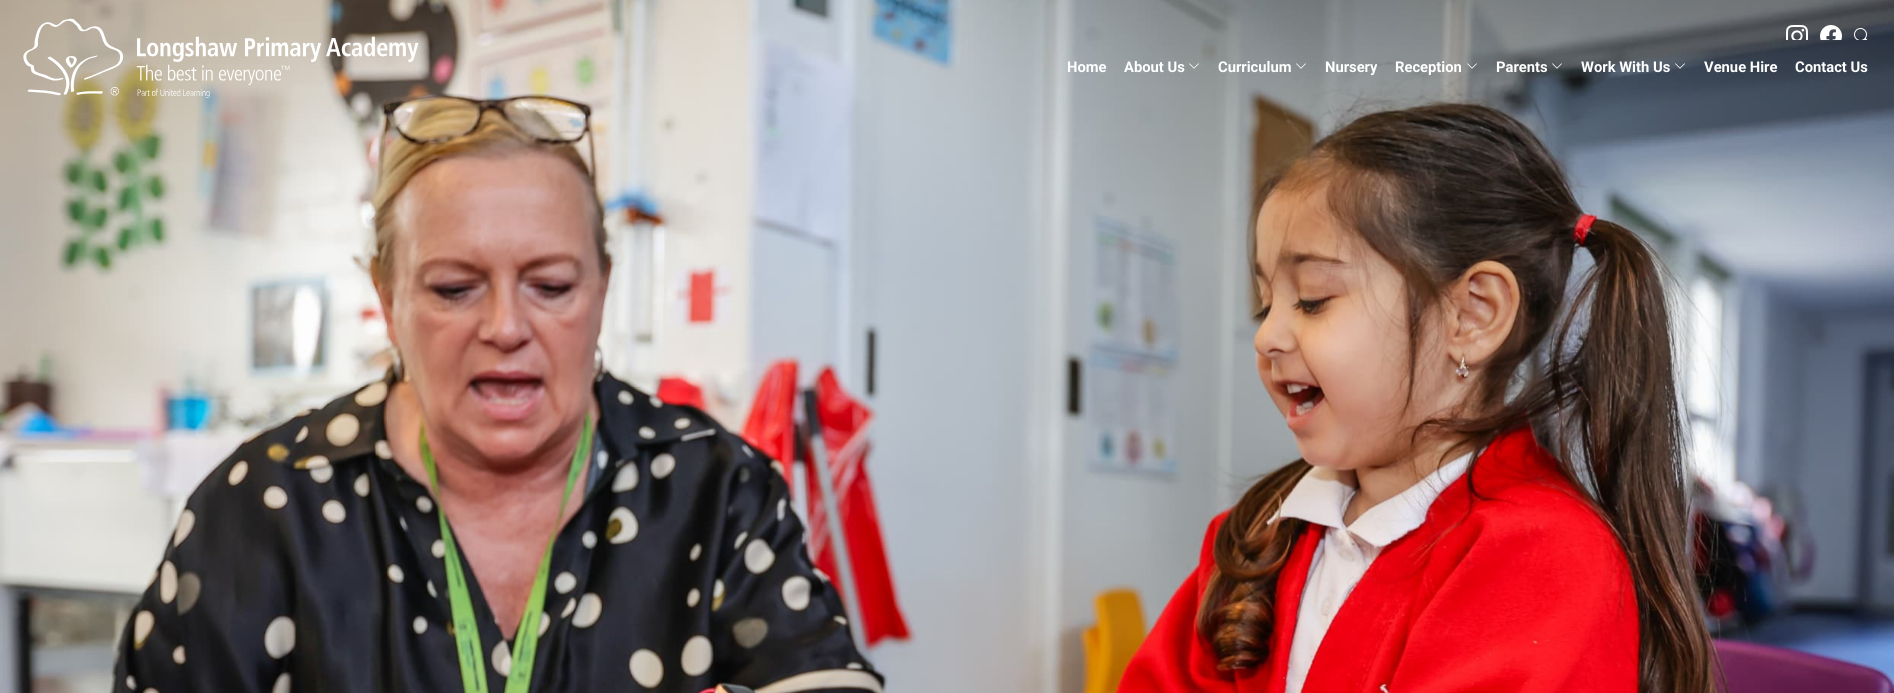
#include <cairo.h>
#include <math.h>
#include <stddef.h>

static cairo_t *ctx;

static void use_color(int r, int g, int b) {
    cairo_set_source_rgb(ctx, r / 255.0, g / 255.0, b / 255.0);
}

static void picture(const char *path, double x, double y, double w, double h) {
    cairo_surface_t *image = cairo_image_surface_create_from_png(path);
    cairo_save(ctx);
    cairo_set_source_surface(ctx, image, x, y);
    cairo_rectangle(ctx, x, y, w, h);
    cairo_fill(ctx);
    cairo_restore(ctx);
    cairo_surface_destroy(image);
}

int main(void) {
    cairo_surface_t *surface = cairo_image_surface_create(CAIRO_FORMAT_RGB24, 1894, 693);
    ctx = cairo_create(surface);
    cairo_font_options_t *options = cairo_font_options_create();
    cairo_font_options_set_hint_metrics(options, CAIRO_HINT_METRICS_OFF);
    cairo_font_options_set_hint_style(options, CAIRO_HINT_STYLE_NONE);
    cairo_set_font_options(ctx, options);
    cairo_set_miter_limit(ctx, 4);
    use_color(255, 255, 255);
    cairo_paint(ctx);
    picture("img1.png", 0, 0, 1894, 693);
    picture("img2.png", 23, 18, 396, 80);
    picture("img3.png", 1786, 25, 22, 15);
    picture("img4.png", 1820, 25, 22, 15);
    picture("img5.png", 1854, 28, 14, 12);
    cairo_select_font_face(ctx, "Roboto", CAIRO_FONT_SLANT_NORMAL, CAIRO_FONT_WEIGHT_BOLD);
    cairo_set_font_size(ctx, 14.75);
    use_color(255, 255, 255);
    cairo_move_to(ctx, 1067, 72);
    cairo_show_text(ctx, "Home");
    cairo_move_to(ctx, 1124, 72);
    cairo_show_text(ctx, "About Us");
    picture("img6.png", 1189, 63, 10, 6);
    cairo_move_to(ctx, 1218, 72);
    cairo_show_text(ctx, "Curriculum");
    picture("img7.png", 1296, 63, 10, 6);
    cairo_move_to(ctx, 1325, 72);
    cairo_show_text(ctx, "Nursery");
    cairo_move_to(ctx, 1395, 72);
    cairo_show_text(ctx, "Reception");
    picture("img8.png", 1467, 63, 10, 6);
    cairo_move_to(ctx, 1496, 72);
    cairo_show_text(ctx, "Parents");
    picture("img9.png", 1552, 63, 10, 6);
    cairo_move_to(ctx, 1581, 72);
    cairo_show_text(ctx, "Work With Us");
    picture("img10.png", 1675, 63, 10, 6);
    cairo_move_to(ctx, 1704, 72);
    cairo_show_text(ctx, "Venue Hire");
    cairo_move_to(ctx, 1795, 72);
    cairo_show_text(ctx, "Contact Us");
    cairo_surface_write_to_png(surface, "result.png");
    cairo_font_options_destroy(options);
    cairo_destroy(ctx);
    cairo_surface_destroy(surface);
    return 0;
}
